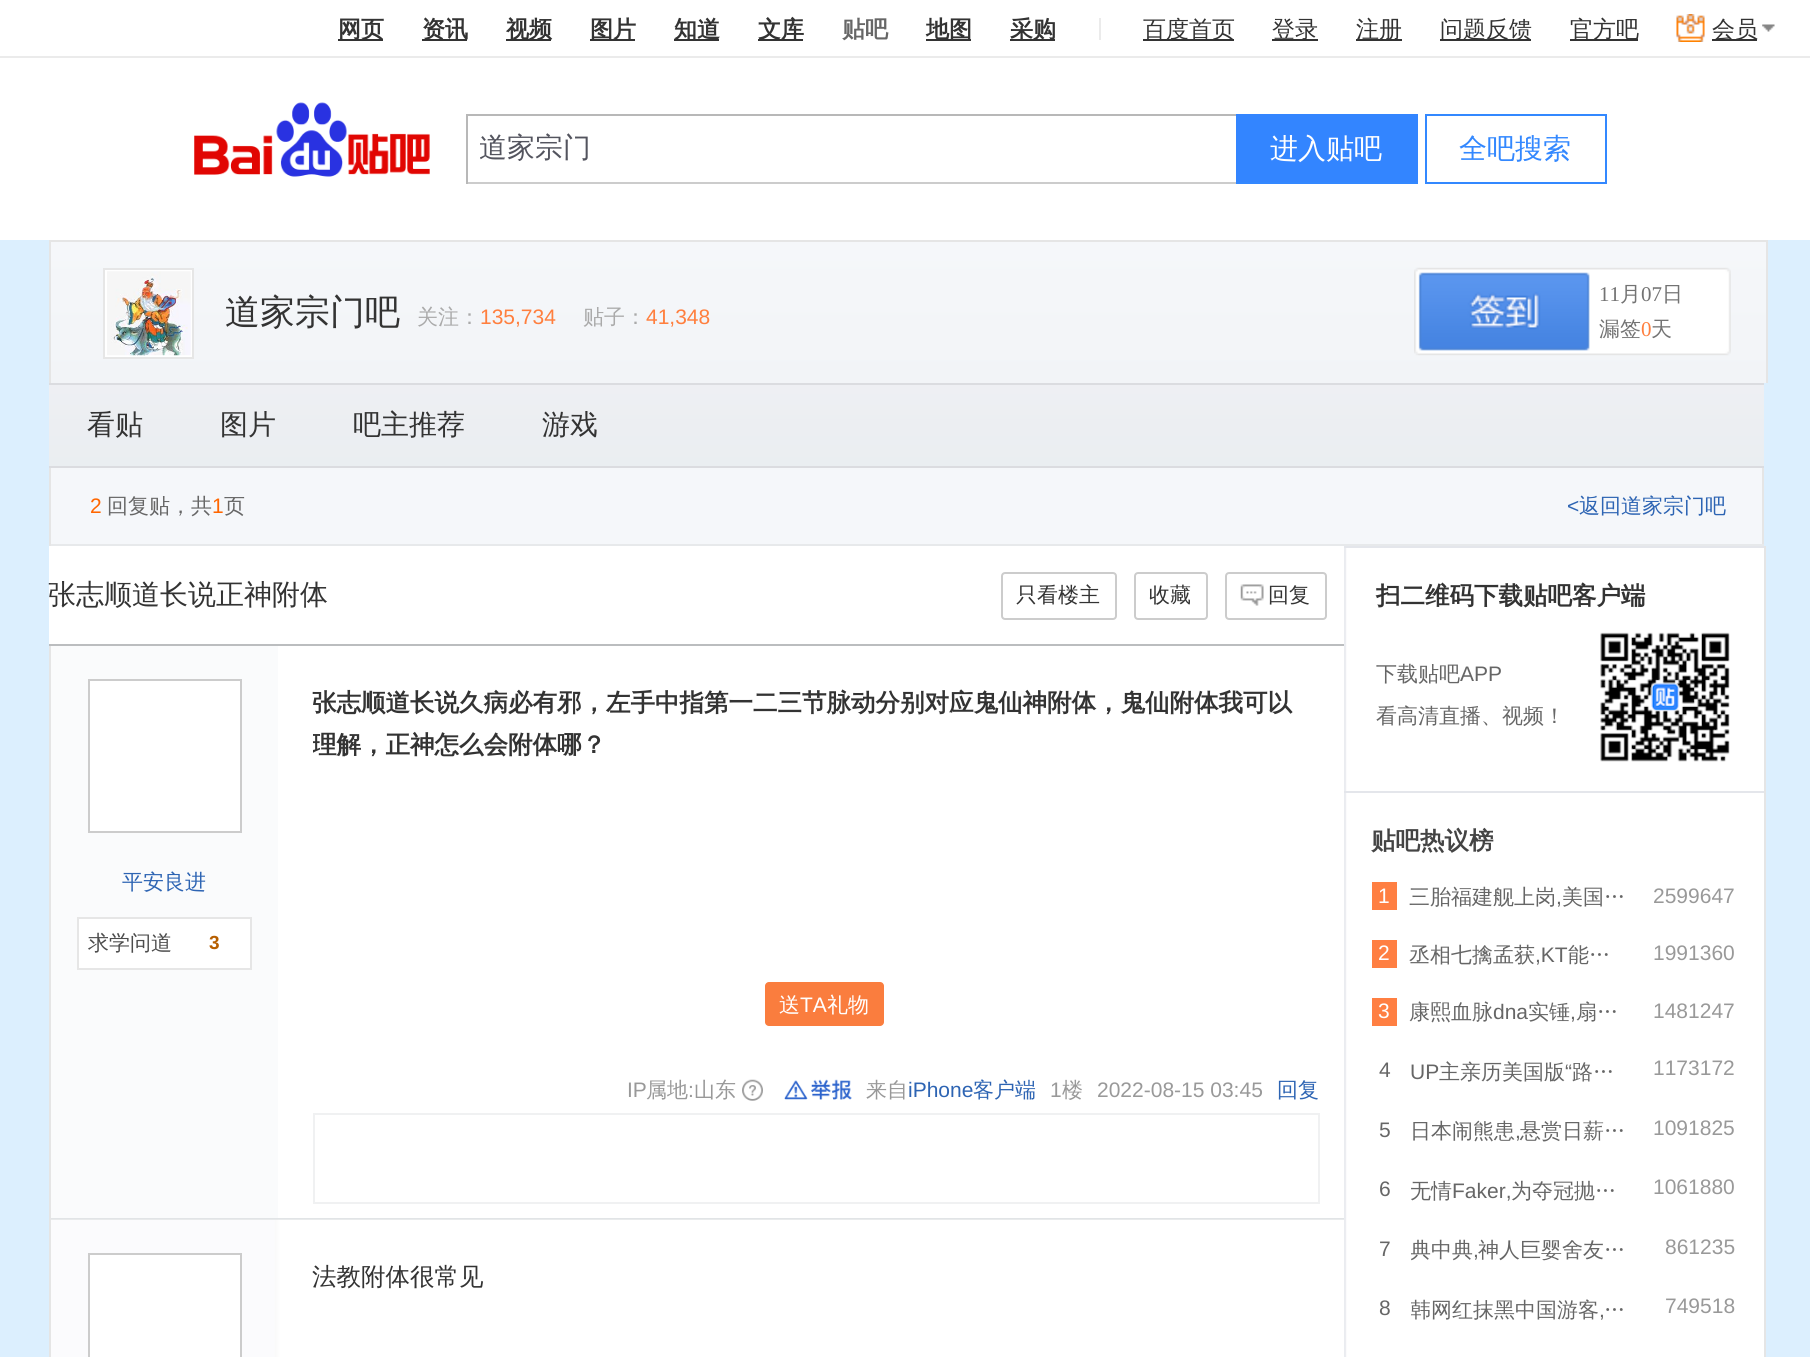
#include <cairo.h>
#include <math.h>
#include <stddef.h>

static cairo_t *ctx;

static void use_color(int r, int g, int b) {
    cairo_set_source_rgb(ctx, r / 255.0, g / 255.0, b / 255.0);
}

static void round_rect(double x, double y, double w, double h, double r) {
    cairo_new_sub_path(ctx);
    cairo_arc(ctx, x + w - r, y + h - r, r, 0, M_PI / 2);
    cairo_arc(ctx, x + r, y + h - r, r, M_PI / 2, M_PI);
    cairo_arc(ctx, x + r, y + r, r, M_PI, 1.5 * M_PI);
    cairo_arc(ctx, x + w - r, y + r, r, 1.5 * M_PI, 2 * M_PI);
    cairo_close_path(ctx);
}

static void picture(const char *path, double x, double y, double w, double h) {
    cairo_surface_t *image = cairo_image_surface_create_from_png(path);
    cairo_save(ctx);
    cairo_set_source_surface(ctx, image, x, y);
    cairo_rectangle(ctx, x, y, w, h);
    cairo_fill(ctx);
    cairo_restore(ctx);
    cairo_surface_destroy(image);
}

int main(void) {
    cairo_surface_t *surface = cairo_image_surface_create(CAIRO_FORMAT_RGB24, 1810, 1357);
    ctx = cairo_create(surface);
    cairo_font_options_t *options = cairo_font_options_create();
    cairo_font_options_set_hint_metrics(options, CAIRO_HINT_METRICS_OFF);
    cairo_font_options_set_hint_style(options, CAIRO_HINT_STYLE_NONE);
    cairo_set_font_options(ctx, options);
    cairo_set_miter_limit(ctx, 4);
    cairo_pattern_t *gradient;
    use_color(220, 239, 254);
    cairo_paint(ctx);
    use_color(255, 255, 255);
    cairo_rectangle(ctx, 0, 0, 1810, 240);
    cairo_fill(ctx);
    use_color(235, 235, 235);
    cairo_rectangle(ctx, 0, 56, 1810, 2);
    cairo_fill(ctx);
    use_color(51, 51, 51);
    cairo_rectangle(ctx, 338, 39, 45, 2);
    cairo_fill(ctx);
    cairo_select_font_face(ctx, "WenQuanYi Zen Hei", CAIRO_FONT_SLANT_NORMAL, CAIRO_FONT_WEIGHT_BOLD);
    cairo_set_font_size(ctx, 23);
    cairo_move_to(ctx, 338, 37);
    cairo_show_text(ctx, "网页");
    cairo_rectangle(ctx, 422, 39, 45, 2);
    cairo_fill(ctx);
    cairo_move_to(ctx, 422, 37);
    cairo_show_text(ctx, "资讯");
    cairo_rectangle(ctx, 506, 39, 45, 2);
    cairo_fill(ctx);
    cairo_move_to(ctx, 506, 37);
    cairo_show_text(ctx, "视频");
    cairo_rectangle(ctx, 590, 39, 45, 2);
    cairo_fill(ctx);
    cairo_move_to(ctx, 590, 37);
    cairo_show_text(ctx, "图片");
    cairo_rectangle(ctx, 674, 39, 45, 2);
    cairo_fill(ctx);
    cairo_move_to(ctx, 674, 37);
    cairo_show_text(ctx, "知道");
    cairo_rectangle(ctx, 758, 39, 45, 2);
    cairo_fill(ctx);
    cairo_move_to(ctx, 758, 37);
    cairo_show_text(ctx, "文库");
    use_color(102, 102, 102);
    cairo_move_to(ctx, 842, 37);
    cairo_show_text(ctx, "贴吧");
    use_color(51, 51, 51);
    cairo_rectangle(ctx, 926, 39, 45, 2);
    cairo_fill(ctx);
    cairo_move_to(ctx, 926, 37);
    cairo_show_text(ctx, "地图");
    cairo_rectangle(ctx, 1010, 39, 45, 2);
    cairo_fill(ctx);
    cairo_move_to(ctx, 1010, 37);
    cairo_show_text(ctx, "采购");
    picture("img1.png", 194, 102, 236, 75);
    use_color(184, 184, 184);
    cairo_rectangle(ctx, 466, 114, 771, 2);
    cairo_fill(ctx);
    use_color(204, 204, 204);
    cairo_rectangle(ctx, 466, 182, 771, 2);
    cairo_fill(ctx);
    use_color(184, 184, 184);
    cairo_rectangle(ctx, 466, 114, 2, 70);
    cairo_fill(ctx);
    cairo_save(ctx);
    cairo_rectangle(ctx, 480, 131, 738, 37);
    cairo_clip(ctx);
    cairo_select_font_face(ctx, "WenQuanYi Zen Hei Medium", CAIRO_FONT_SLANT_NORMAL, CAIRO_FONT_WEIGHT_NORMAL);
    cairo_set_font_size(ctx, 28);
    use_color(83, 84, 94);
    cairo_move_to(ctx, 479, 157);
    cairo_show_text(ctx, "道家宗门");
    cairo_restore(ctx);
    use_color(51, 133, 255);
    cairo_rectangle(ctx, 1236, 114, 182, 68);
    cairo_fill(ctx);
    use_color(51, 136, 255);
    cairo_rectangle(ctx, 1236, 182, 182, 2);
    cairo_fill(ctx);
    cairo_select_font_face(ctx, "WenQuanYi Zen Hei Medium", CAIRO_FONT_SLANT_NORMAL, CAIRO_FONT_WEIGHT_NORMAL);
    cairo_set_font_size(ctx, 28);
    use_color(255, 255, 255);
    cairo_move_to(ctx, 1270, 158);
    cairo_show_text(ctx, "进入贴吧");
    cairo_rectangle(ctx, 1426, 115, 180, 68);
    use_color(51, 136, 255);
    cairo_stroke(ctx);
    cairo_move_to(ctx, 1459, 158);
    cairo_show_text(ctx, "全吧搜索");
    use_color(245, 247, 250);
    cairo_rectangle(ctx, 51, 468, 1711, 76);
    cairo_fill(ctx);
    gradient = cairo_pattern_create_linear(908, 241, 908, 383);
    cairo_pattern_add_color_stop_rgba(gradient, 0, 0.961, 0.969, 0.98, 1);
    cairo_pattern_add_color_stop_rgba(gradient, 1, 0.949, 0.957, 0.969, 1);
    cairo_set_source(ctx, gradient);
    cairo_pattern_destroy(gradient);
    cairo_rectangle(ctx, 51, 242, 1715, 141);
    cairo_fill(ctx);
    use_color(229, 229, 229);
    cairo_rectangle(ctx, 49, 240, 1719, 2);
    cairo_fill(ctx);
    cairo_rectangle(ctx, 1766, 240, 2, 143);
    cairo_fill(ctx);
    cairo_rectangle(ctx, 49, 240, 2, 143);
    cairo_fill(ctx);
    use_color(255, 255, 255);
    cairo_rectangle(ctx, 104, 269, 89, 89);
    cairo_fill_preserve(ctx);
    use_color(230, 230, 230);
    cairo_stroke(ctx);
    picture("img2.png", 107, 271, 84, 85);
    cairo_set_font_size(ctx, 35);
    use_color(51, 51, 51);
    cairo_move_to(ctx, 225, 324);
    cairo_show_text(ctx, "道家宗门吧");
    cairo_set_font_size(ctx, 21);
    use_color(170, 170, 170);
    cairo_move_to(ctx, 417, 324);
    cairo_show_text(ctx, "关注：");
    cairo_select_font_face(ctx, "Liberation Sans", CAIRO_FONT_SLANT_NORMAL, CAIRO_FONT_WEIGHT_NORMAL);
    use_color(255, 127, 62);
    cairo_move_to(ctx, 480, 324);
    cairo_show_text(ctx, "135,734");
    cairo_select_font_face(ctx, "WenQuanYi Zen Hei Medium", CAIRO_FONT_SLANT_NORMAL, CAIRO_FONT_WEIGHT_NORMAL);
    use_color(170, 170, 170);
    cairo_move_to(ctx, 583, 324);
    cairo_show_text(ctx, "贴子：");
    cairo_select_font_face(ctx, "Liberation Sans", CAIRO_FONT_SLANT_NORMAL, CAIRO_FONT_WEIGHT_NORMAL);
    use_color(255, 127, 62);
    cairo_move_to(ctx, 646, 324);
    cairo_show_text(ctx, "41,348");
    picture("img3.png", 1414, 267, 317, 89);
    cairo_select_font_face(ctx, "Liberation Serif", CAIRO_FONT_SLANT_NORMAL, CAIRO_FONT_WEIGHT_NORMAL);
    use_color(115, 115, 115);
    cairo_move_to(ctx, 1599, 301);
    cairo_show_text(ctx, "11");
    cairo_select_font_face(ctx, "WenQuanYi Zen Hei Medium", CAIRO_FONT_SLANT_NORMAL, CAIRO_FONT_WEIGHT_NORMAL);
    cairo_move_to(ctx, 1620, 301);
    cairo_show_text(ctx, "月");
    cairo_select_font_face(ctx, "Liberation Serif", CAIRO_FONT_SLANT_NORMAL, CAIRO_FONT_WEIGHT_NORMAL);
    cairo_move_to(ctx, 1641, 301);
    cairo_show_text(ctx, "07");
    cairo_select_font_face(ctx, "WenQuanYi Zen Hei Medium", CAIRO_FONT_SLANT_NORMAL, CAIRO_FONT_WEIGHT_NORMAL);
    cairo_move_to(ctx, 1662, 301);
    cairo_show_text(ctx, "日");
    cairo_move_to(ctx, 1599, 336);
    cairo_show_text(ctx, "漏签");
    cairo_select_font_face(ctx, "Liberation Serif", CAIRO_FONT_SLANT_NORMAL, CAIRO_FONT_WEIGHT_NORMAL);
    use_color(255, 127, 62);
    cairo_move_to(ctx, 1641, 336);
    cairo_show_text(ctx, "0");
    cairo_select_font_face(ctx, "WenQuanYi Zen Hei Medium", CAIRO_FONT_SLANT_NORMAL, CAIRO_FONT_WEIGHT_NORMAL);
    use_color(115, 115, 115);
    cairo_move_to(ctx, 1651, 336);
    cairo_show_text(ctx, "天");
    gradient = cairo_pattern_create_linear(907, 385, 907, 466);
    cairo_pattern_add_color_stop_rgba(gradient, 0, 0.933, 0.937, 0.953, 1);
    cairo_pattern_add_color_stop_rgba(gradient, 1, 0.918, 0.933, 0.945, 1);
    cairo_set_source(ctx, gradient);
    cairo_pattern_destroy(gradient);
    cairo_rectangle(ctx, 49, 385, 1715, 81);
    cairo_fill(ctx);
    use_color(219, 220, 224);
    cairo_rectangle(ctx, 49, 383, 1715, 2);
    cairo_fill(ctx);
    use_color(229, 229, 229);
    cairo_rectangle(ctx, 1762, 467, 2, 79);
    cairo_fill(ctx);
    use_color(231, 233, 235);
    cairo_rectangle(ctx, 49, 544, 1715, 2);
    cairo_fill(ctx);
    use_color(229, 229, 229);
    cairo_rectangle(ctx, 49, 467, 2, 79);
    cairo_fill(ctx);
    use_color(219, 220, 224);
    cairo_rectangle(ctx, 49, 466, 1715, 2);
    cairo_fill(ctx);
    cairo_set_font_size(ctx, 28);
    use_color(51, 51, 51);
    cairo_move_to(ctx, 87, 434);
    cairo_show_text(ctx, "看贴");
    cairo_move_to(ctx, 220, 434);
    cairo_show_text(ctx, "图片");
    cairo_move_to(ctx, 353, 434);
    cairo_show_text(ctx, "吧主推荐");
    cairo_move_to(ctx, 542, 434);
    cairo_show_text(ctx, "游戏");
    cairo_select_font_face(ctx, "Liberation Sans", CAIRO_FONT_SLANT_NORMAL, CAIRO_FONT_WEIGHT_NORMAL);
    cairo_set_font_size(ctx, 21);
    use_color(255, 102, 0);
    cairo_move_to(ctx, 90, 513);
    cairo_show_text(ctx, "2");
    cairo_select_font_face(ctx, "WenQuanYi Zen Hei Medium", CAIRO_FONT_SLANT_NORMAL, CAIRO_FONT_WEIGHT_NORMAL);
    use_color(102, 102, 102);
    cairo_move_to(ctx, 107, 513);
    cairo_show_text(ctx, "回复贴，共");
    cairo_select_font_face(ctx, "Liberation Sans", CAIRO_FONT_SLANT_NORMAL, CAIRO_FONT_WEIGHT_NORMAL);
    use_color(255, 102, 0);
    cairo_move_to(ctx, 212, 513);
    cairo_show_text(ctx, "1");
    cairo_select_font_face(ctx, "WenQuanYi Zen Hei Medium", CAIRO_FONT_SLANT_NORMAL, CAIRO_FONT_WEIGHT_NORMAL);
    use_color(102, 102, 102);
    cairo_move_to(ctx, 224, 513);
    cairo_show_text(ctx, "页");
    cairo_select_font_face(ctx, "Liberation Sans", CAIRO_FONT_SLANT_NORMAL, CAIRO_FONT_WEIGHT_NORMAL);
    use_color(45, 100, 179);
    cairo_move_to(ctx, 1567, 513);
    cairo_show_text(ctx, "<");
    cairo_select_font_face(ctx, "WenQuanYi Zen Hei Medium", CAIRO_FONT_SLANT_NORMAL, CAIRO_FONT_WEIGHT_NORMAL);
    cairo_move_to(ctx, 1579, 513);
    cairo_show_text(ctx, "返回道家宗门吧");
    picture("img4.png", 1344, 548, 420, 809);
    use_color(229, 229, 229);
    cairo_rectangle(ctx, 1764, 546, 2, 811);
    cairo_fill(ctx);
    use_color(250, 251, 252);
    cairo_rectangle(ctx, 51, 646, 227, 572);
    cairo_fill(ctx);
    use_color(255, 255, 255);
    cairo_rectangle(ctx, 49, 546, 1295, 98);
    cairo_fill(ctx);
    use_color(187, 189, 191);
    cairo_rectangle(ctx, 49, 644, 1295, 2);
    cairo_fill(ctx);
    cairo_set_font_size(ctx, 28);
    use_color(51, 51, 51);
    cairo_move_to(ctx, 48, 604);
    cairo_show_text(ctx, "张志顺道长说正神附体");
    round_rect(1002, 573, 114, 46, 3);
    use_color(204, 204, 204);
    cairo_stroke(ctx);
    cairo_set_font_size(ctx, 21);
    use_color(51, 51, 51);
    cairo_move_to(ctx, 1016, 602);
    cairo_show_text(ctx, "只看楼主");
    round_rect(1135, 573, 72, 46, 3);
    use_color(204, 204, 204);
    cairo_stroke(ctx);
    use_color(51, 51, 51);
    cairo_move_to(ctx, 1149, 602);
    cairo_show_text(ctx, "收藏");
    round_rect(1226, 573, 100, 46, 3);
    use_color(204, 204, 204);
    cairo_stroke(ctx);
    picture("img5.png", 1240, 584, 24, 22);
    use_color(51, 51, 51);
    cairo_move_to(ctx, 1268, 602);
    cairo_show_text(ctx, "回复");
    use_color(255, 255, 255);
    cairo_rectangle(ctx, 278, 646, 1066, 572);
    cairo_fill(ctx);
    use_color(225, 228, 230);
    cairo_rectangle(ctx, 49, 1218, 1295, 2);
    cairo_fill(ctx);
    use_color(229, 229, 229);
    cairo_rectangle(ctx, 49, 646, 2, 711);
    cairo_fill(ctx);
    use_color(255, 255, 255);
    cairo_rectangle(ctx, 89, 680, 152, 152);
    cairo_fill_preserve(ctx);
    use_color(204, 204, 204);
    cairo_stroke(ctx);
    use_color(45, 100, 179);
    cairo_move_to(ctx, 122, 889);
    cairo_show_text(ctx, "平安良进");
    use_color(255, 255, 255);
    cairo_rectangle(ctx, 78, 918, 173, 51);
    cairo_fill_preserve(ctx);
    use_color(230, 230, 230);
    cairo_stroke(ctx);
    use_color(76, 76, 76);
    cairo_move_to(ctx, 88, 950);
    cairo_show_text(ctx, "求学问道");
    cairo_select_font_face(ctx, "Liberation Sans", CAIRO_FONT_SLANT_NORMAL, CAIRO_FONT_WEIGHT_BOLD);
    cairo_set_font_size(ctx, 19);
    use_color(182, 94, 0);
    cairo_move_to(ctx, 209, 949);
    cairo_show_text(ctx, "3");
    cairo_select_font_face(ctx, "WenQuanYi Zen Hei", CAIRO_FONT_SLANT_NORMAL, CAIRO_FONT_WEIGHT_BOLD);
    cairo_set_font_size(ctx, 24.5);
    use_color(51, 51, 51);
    cairo_move_to(ctx, 312, 711);
    cairo_show_text(ctx, "张志顺道长说久病必有邪，左手中指第一二三节脉动分别对应鬼仙神附体，鬼仙附体我可以");
    cairo_save(ctx);
    cairo_rectangle(ctx, 313, 681, 994, 84);
    cairo_clip(ctx);
    cairo_move_to(ctx, 312, 753);
    cairo_show_text(ctx, "理解，正神怎么会附体哪？");
    cairo_restore(ctx);
    use_color(250, 125, 62);
    round_rect(765, 982, 119, 44, 4);
    cairo_fill(ctx);
    cairo_select_font_face(ctx, "WenQuanYi Zen Hei Medium", CAIRO_FONT_SLANT_NORMAL, CAIRO_FONT_WEIGHT_NORMAL);
    cairo_set_font_size(ctx, 21);
    use_color(255, 255, 255);
    cairo_move_to(ctx, 779, 1012);
    cairo_show_text(ctx, "送");
    cairo_select_font_face(ctx, "Liberation Sans", CAIRO_FONT_SLANT_NORMAL, CAIRO_FONT_WEIGHT_NORMAL);
    cairo_move_to(ctx, 800, 1012);
    cairo_show_text(ctx, "TA");
    cairo_select_font_face(ctx, "WenQuanYi Zen Hei Medium", CAIRO_FONT_SLANT_NORMAL, CAIRO_FONT_WEIGHT_NORMAL);
    cairo_move_to(ctx, 827, 1012);
    cairo_show_text(ctx, "礼物");
    cairo_select_font_face(ctx, "Liberation Sans", CAIRO_FONT_SLANT_NORMAL, CAIRO_FONT_WEIGHT_NORMAL);
    use_color(153, 153, 153);
    cairo_move_to(ctx, 627, 1097);
    cairo_show_text(ctx, "IP");
    cairo_select_font_face(ctx, "WenQuanYi Zen Hei Medium", CAIRO_FONT_SLANT_NORMAL, CAIRO_FONT_WEIGHT_NORMAL);
    cairo_move_to(ctx, 646, 1097);
    cairo_show_text(ctx, "属地");
    cairo_select_font_face(ctx, "Liberation Sans", CAIRO_FONT_SLANT_NORMAL, CAIRO_FONT_WEIGHT_NORMAL);
    cairo_move_to(ctx, 688, 1097);
    cairo_show_text(ctx, ":");
    cairo_select_font_face(ctx, "WenQuanYi Zen Hei Medium", CAIRO_FONT_SLANT_NORMAL, CAIRO_FONT_WEIGHT_NORMAL);
    cairo_move_to(ctx, 694, 1097);
    cairo_show_text(ctx, "山东");
    picture("img6.png", 742, 1079, 21, 22);
    picture("img7.png", 784, 1079, 68, 21);
    cairo_move_to(ctx, 866, 1097);
    cairo_show_text(ctx, "来自");
    cairo_select_font_face(ctx, "Liberation Sans", CAIRO_FONT_SLANT_NORMAL, CAIRO_FONT_WEIGHT_NORMAL);
    use_color(45, 100, 179);
    cairo_move_to(ctx, 908, 1097);
    cairo_show_text(ctx, "iPhone");
    cairo_select_font_face(ctx, "WenQuanYi Zen Hei Medium", CAIRO_FONT_SLANT_NORMAL, CAIRO_FONT_WEIGHT_NORMAL);
    cairo_move_to(ctx, 973, 1097);
    cairo_show_text(ctx, "客户端");
    cairo_select_font_face(ctx, "Liberation Sans", CAIRO_FONT_SLANT_NORMAL, CAIRO_FONT_WEIGHT_NORMAL);
    use_color(153, 153, 153);
    cairo_move_to(ctx, 1050, 1097);
    cairo_show_text(ctx, "1");
    cairo_select_font_face(ctx, "WenQuanYi Zen Hei Medium", CAIRO_FONT_SLANT_NORMAL, CAIRO_FONT_WEIGHT_NORMAL);
    cairo_move_to(ctx, 1062, 1097);
    cairo_show_text(ctx, "楼");
    cairo_select_font_face(ctx, "Liberation Sans", CAIRO_FONT_SLANT_NORMAL, CAIRO_FONT_WEIGHT_NORMAL);
    cairo_move_to(ctx, 1097, 1097);
    cairo_show_text(ctx, "2022-08-15 03:45");
    cairo_select_font_face(ctx, "WenQuanYi Zen Hei Medium", CAIRO_FONT_SLANT_NORMAL, CAIRO_FONT_WEIGHT_NORMAL);
    use_color(45, 100, 179);
    cairo_move_to(ctx, 1277, 1097);
    cairo_show_text(ctx, "回复");
    cairo_rectangle(ctx, 314, 1114, 1005, 89);
    use_color(240, 241, 242);
    cairo_stroke(ctx);
    picture("img8.png", 51, 1219, 1293, 138);
    use_color(255, 255, 255);
    cairo_rectangle(ctx, 89, 1254, 152, 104);
    cairo_fill_preserve(ctx);
    use_color(204, 204, 204);
    cairo_stroke(ctx);
    cairo_set_font_size(ctx, 24.5);
    use_color(51, 51, 51);
    cairo_move_to(ctx, 312, 1285);
    cairo_show_text(ctx, "法教附体很常见");
    use_color(228, 230, 235);
    cairo_rectangle(ctx, 1344, 546, 420, 2);
    cairo_fill(ctx);
    cairo_select_font_face(ctx, "WenQuanYi Zen Hei", CAIRO_FONT_SLANT_NORMAL, CAIRO_FONT_WEIGHT_BOLD);
    use_color(51, 51, 51);
    cairo_move_to(ctx, 1376, 604);
    cairo_show_text(ctx, "扫二维码下载贴吧客户端");
    cairo_select_font_face(ctx, "WenQuanYi Zen Hei Medium", CAIRO_FONT_SLANT_NORMAL, CAIRO_FONT_WEIGHT_NORMAL);
    cairo_set_font_size(ctx, 21);
    use_color(102, 102, 102);
    cairo_move_to(ctx, 1376, 681);
    cairo_show_text(ctx, "下载贴吧");
    cairo_select_font_face(ctx, "Liberation Sans", CAIRO_FONT_SLANT_NORMAL, CAIRO_FONT_WEIGHT_NORMAL);
    cairo_move_to(ctx, 1460, 681);
    cairo_show_text(ctx, "APP");
    cairo_select_font_face(ctx, "WenQuanYi Zen Hei Medium", CAIRO_FONT_SLANT_NORMAL, CAIRO_FONT_WEIGHT_NORMAL);
    cairo_move_to(ctx, 1376, 723);
    cairo_show_text(ctx, "看高清直播、视频！");
    picture("img9.png", 1600, 632, 130, 130);
    use_color(228, 230, 235);
    cairo_rectangle(ctx, 1344, 791, 420, 2);
    cairo_fill(ctx);
    cairo_select_font_face(ctx, "WenQuanYi Zen Hei", CAIRO_FONT_SLANT_NORMAL, CAIRO_FONT_WEIGHT_BOLD);
    cairo_set_font_size(ctx, 24.5);
    use_color(68, 68, 68);
    cairo_move_to(ctx, 1371, 849);
    cairo_show_text(ctx, "贴吧热议榜");
    use_color(255, 127, 66);
    cairo_rectangle(ctx, 1372, 882, 25, 28);
    cairo_fill(ctx);
    cairo_select_font_face(ctx, "Liberation Sans", CAIRO_FONT_SLANT_NORMAL, CAIRO_FONT_WEIGHT_NORMAL);
    cairo_set_font_size(ctx, 21);
    use_color(255, 255, 255);
    cairo_move_to(ctx, 1378, 903);
    cairo_show_text(ctx, "1");
    cairo_select_font_face(ctx, "WenQuanYi Zen Hei Medium", CAIRO_FONT_SLANT_NORMAL, CAIRO_FONT_WEIGHT_NORMAL);
    use_color(102, 102, 102);
    cairo_move_to(ctx, 1409, 904);
    cairo_show_text(ctx, "三胎福建舰上岗");
    cairo_select_font_face(ctx, "Liberation Sans", CAIRO_FONT_SLANT_NORMAL, CAIRO_FONT_WEIGHT_NORMAL);
    cairo_move_to(ctx, 1556, 904);
    cairo_show_text(ctx, ",");
    cairo_select_font_face(ctx, "WenQuanYi Zen Hei Medium", CAIRO_FONT_SLANT_NORMAL, CAIRO_FONT_WEIGHT_NORMAL);
    cairo_move_to(ctx, 1562, 904);
    cairo_show_text(ctx, "美国…");
    cairo_select_font_face(ctx, "Liberation Sans", CAIRO_FONT_SLANT_NORMAL, CAIRO_FONT_WEIGHT_NORMAL);
    use_color(153, 153, 153);
    cairo_move_to(ctx, 1653, 903);
    cairo_show_text(ctx, "2599647");
    use_color(255, 127, 66);
    cairo_rectangle(ctx, 1372, 940, 25, 28);
    cairo_fill(ctx);
    use_color(255, 255, 255);
    cairo_move_to(ctx, 1378, 960);
    cairo_show_text(ctx, "2");
    cairo_select_font_face(ctx, "WenQuanYi Zen Hei Medium", CAIRO_FONT_SLANT_NORMAL, CAIRO_FONT_WEIGHT_NORMAL);
    use_color(102, 102, 102);
    cairo_move_to(ctx, 1409, 962);
    cairo_show_text(ctx, "丞相七擒孟获");
    cairo_select_font_face(ctx, "Liberation Sans", CAIRO_FONT_SLANT_NORMAL, CAIRO_FONT_WEIGHT_NORMAL);
    cairo_move_to(ctx, 1535, 962);
    cairo_show_text(ctx, ",KT");
    cairo_select_font_face(ctx, "WenQuanYi Zen Hei Medium", CAIRO_FONT_SLANT_NORMAL, CAIRO_FONT_WEIGHT_NORMAL);
    cairo_move_to(ctx, 1568, 962);
    cairo_show_text(ctx, "能…");
    cairo_select_font_face(ctx, "Liberation Sans", CAIRO_FONT_SLANT_NORMAL, CAIRO_FONT_WEIGHT_NORMAL);
    use_color(153, 153, 153);
    cairo_move_to(ctx, 1653, 960);
    cairo_show_text(ctx, "1991360");
    use_color(255, 127, 66);
    cairo_rectangle(ctx, 1372, 998, 25, 28);
    cairo_fill(ctx);
    use_color(255, 255, 255);
    cairo_move_to(ctx, 1378, 1018);
    cairo_show_text(ctx, "3");
    cairo_select_font_face(ctx, "WenQuanYi Zen Hei Medium", CAIRO_FONT_SLANT_NORMAL, CAIRO_FONT_WEIGHT_NORMAL);
    use_color(102, 102, 102);
    cairo_move_to(ctx, 1409, 1019);
    cairo_show_text(ctx, "康熙血脉");
    cairo_select_font_face(ctx, "Liberation Sans", CAIRO_FONT_SLANT_NORMAL, CAIRO_FONT_WEIGHT_NORMAL);
    cairo_move_to(ctx, 1493, 1019);
    cairo_show_text(ctx, "dna");
    cairo_select_font_face(ctx, "WenQuanYi Zen Hei Medium", CAIRO_FONT_SLANT_NORMAL, CAIRO_FONT_WEIGHT_NORMAL);
    cairo_move_to(ctx, 1528, 1019);
    cairo_show_text(ctx, "实锤");
    cairo_select_font_face(ctx, "Liberation Sans", CAIRO_FONT_SLANT_NORMAL, CAIRO_FONT_WEIGHT_NORMAL);
    cairo_move_to(ctx, 1570, 1019);
    cairo_show_text(ctx, ",");
    cairo_select_font_face(ctx, "WenQuanYi Zen Hei Medium", CAIRO_FONT_SLANT_NORMAL, CAIRO_FONT_WEIGHT_NORMAL);
    cairo_move_to(ctx, 1576, 1019);
    cairo_show_text(ctx, "扇…");
    cairo_select_font_face(ctx, "Liberation Sans", CAIRO_FONT_SLANT_NORMAL, CAIRO_FONT_WEIGHT_NORMAL);
    use_color(153, 153, 153);
    cairo_move_to(ctx, 1653, 1018);
    cairo_show_text(ctx, "1481247");
    use_color(102, 102, 102);
    cairo_move_to(ctx, 1379, 1077);
    cairo_show_text(ctx, "4");
    cairo_move_to(ctx, 1410, 1079);
    cairo_show_text(ctx, "UP");
    cairo_select_font_face(ctx, "WenQuanYi Zen Hei Medium", CAIRO_FONT_SLANT_NORMAL, CAIRO_FONT_WEIGHT_NORMAL);
    cairo_move_to(ctx, 1439, 1079);
    cairo_show_text(ctx, "主亲历美国版");
    cairo_select_font_face(ctx, "Liberation Sans", CAIRO_FONT_SLANT_NORMAL, CAIRO_FONT_WEIGHT_NORMAL);
    cairo_move_to(ctx, 1565, 1079);
    cairo_show_text(ctx, "“");
    cairo_select_font_face(ctx, "WenQuanYi Zen Hei Medium", CAIRO_FONT_SLANT_NORMAL, CAIRO_FONT_WEIGHT_NORMAL);
    cairo_move_to(ctx, 1572, 1079);
    cairo_show_text(ctx, "路…");
    cairo_select_font_face(ctx, "Liberation Sans", CAIRO_FONT_SLANT_NORMAL, CAIRO_FONT_WEIGHT_NORMAL);
    use_color(153, 153, 153);
    cairo_move_to(ctx, 1653, 1075);
    cairo_show_text(ctx, "1173172");
    use_color(102, 102, 102);
    cairo_move_to(ctx, 1379, 1137);
    cairo_show_text(ctx, "5");
    cairo_select_font_face(ctx, "WenQuanYi Zen Hei Medium", CAIRO_FONT_SLANT_NORMAL, CAIRO_FONT_WEIGHT_NORMAL);
    cairo_move_to(ctx, 1410, 1138);
    cairo_show_text(ctx, "日本闹熊患");
    cairo_select_font_face(ctx, "Liberation Sans", CAIRO_FONT_SLANT_NORMAL, CAIRO_FONT_WEIGHT_NORMAL);
    cairo_move_to(ctx, 1515, 1138);
    cairo_show_text(ctx, ",");
    cairo_select_font_face(ctx, "WenQuanYi Zen Hei Medium", CAIRO_FONT_SLANT_NORMAL, CAIRO_FONT_WEIGHT_NORMAL);
    cairo_move_to(ctx, 1520, 1138);
    cairo_show_text(ctx, "悬赏日薪…");
    cairo_select_font_face(ctx, "Liberation Sans", CAIRO_FONT_SLANT_NORMAL, CAIRO_FONT_WEIGHT_NORMAL);
    use_color(153, 153, 153);
    cairo_move_to(ctx, 1653, 1135);
    cairo_show_text(ctx, "1091825");
    use_color(102, 102, 102);
    cairo_move_to(ctx, 1379, 1196);
    cairo_show_text(ctx, "6");
    cairo_save(ctx);
    cairo_rectangle(ctx, 1411, 1171, 217, 38);
    cairo_clip(ctx);
    cairo_select_font_face(ctx, "WenQuanYi Zen Hei Medium", CAIRO_FONT_SLANT_NORMAL, CAIRO_FONT_WEIGHT_NORMAL);
    cairo_move_to(ctx, 1410, 1198);
    cairo_show_text(ctx, "无情");
    cairo_restore(ctx);
    cairo_move_to(ctx, 1452, 1198);
    cairo_show_text(ctx, "Faker,");
    cairo_select_font_face(ctx, "WenQuanYi Zen Hei Medium", CAIRO_FONT_SLANT_NORMAL, CAIRO_FONT_WEIGHT_NORMAL);
    cairo_move_to(ctx, 1511, 1198);
    cairo_show_text(ctx, "为夺冠抛…");
    cairo_select_font_face(ctx, "Liberation Sans", CAIRO_FONT_SLANT_NORMAL, CAIRO_FONT_WEIGHT_NORMAL);
    use_color(153, 153, 153);
    cairo_move_to(ctx, 1653, 1194);
    cairo_show_text(ctx, "1061880");
    use_color(102, 102, 102);
    cairo_move_to(ctx, 1379, 1256);
    cairo_show_text(ctx, "7");
    cairo_save(ctx);
    cairo_rectangle(ctx, 1411, 1230, 217, 39);
    cairo_clip(ctx);
    cairo_select_font_face(ctx, "WenQuanYi Zen Hei Medium", CAIRO_FONT_SLANT_NORMAL, CAIRO_FONT_WEIGHT_NORMAL);
    cairo_move_to(ctx, 1410, 1257);
    cairo_show_text(ctx, "典中典");
    cairo_restore(ctx);
    cairo_move_to(ctx, 1473, 1257);
    cairo_show_text(ctx, ",");
    cairo_select_font_face(ctx, "WenQuanYi Zen Hei Medium", CAIRO_FONT_SLANT_NORMAL, CAIRO_FONT_WEIGHT_NORMAL);
    cairo_move_to(ctx, 1478, 1257);
    cairo_show_text(ctx, "神人巨婴舍友…");
    cairo_select_font_face(ctx, "Liberation Sans", CAIRO_FONT_SLANT_NORMAL, CAIRO_FONT_WEIGHT_NORMAL);
    use_color(153, 153, 153);
    cairo_move_to(ctx, 1665, 1254);
    cairo_show_text(ctx, "861235");
    use_color(102, 102, 102);
    cairo_move_to(ctx, 1379, 1315);
    cairo_show_text(ctx, "8");
    cairo_save(ctx);
    cairo_rectangle(ctx, 1411, 1290, 217, 38);
    cairo_clip(ctx);
    cairo_select_font_face(ctx, "WenQuanYi Zen Hei Medium", CAIRO_FONT_SLANT_NORMAL, CAIRO_FONT_WEIGHT_NORMAL);
    cairo_move_to(ctx, 1410, 1317);
    cairo_show_text(ctx, "韩网红抹黑中国游客");
    cairo_restore(ctx);
    cairo_select_font_face(ctx, "WenQuanYi Zen Hei Medium", CAIRO_FONT_SLANT_NORMAL, CAIRO_FONT_WEIGHT_NORMAL);
    cairo_move_to(ctx, 1604, 1317);
    cairo_show_text(ctx, "…");
    cairo_select_font_face(ctx, "Liberation Sans", CAIRO_FONT_SLANT_NORMAL, CAIRO_FONT_WEIGHT_NORMAL);
    cairo_move_to(ctx, 1599, 1317);
    cairo_show_text(ctx, ",");
    use_color(153, 153, 153);
    cairo_move_to(ctx, 1665, 1313);
    cairo_show_text(ctx, "749518");
    use_color(235, 235, 235);
    cairo_rectangle(ctx, 1099, 18, 2, 22);
    cairo_fill(ctx);
    use_color(51, 51, 51);
    cairo_rectangle(ctx, 1143, 39, 91, 2);
    cairo_fill(ctx);
    cairo_select_font_face(ctx, "WenQuanYi Zen Hei Medium", CAIRO_FONT_SLANT_NORMAL, CAIRO_FONT_WEIGHT_NORMAL);
    cairo_set_font_size(ctx, 23);
    cairo_move_to(ctx, 1143, 37);
    cairo_show_text(ctx, "百度首页");
    cairo_rectangle(ctx, 1272, 39, 46, 2);
    cairo_fill(ctx);
    cairo_move_to(ctx, 1272, 37);
    cairo_show_text(ctx, "登录");
    cairo_rectangle(ctx, 1356, 39, 46, 2);
    cairo_fill(ctx);
    cairo_move_to(ctx, 1356, 37);
    cairo_show_text(ctx, "注册");
    cairo_rectangle(ctx, 1440, 39, 91, 2);
    cairo_fill(ctx);
    cairo_move_to(ctx, 1440, 37);
    cairo_show_text(ctx, "问题反馈");
    cairo_rectangle(ctx, 1570, 39, 68, 2);
    cairo_fill(ctx);
    cairo_move_to(ctx, 1570, 37);
    cairo_show_text(ctx, "官方吧");
    picture("img10.png", 1676, 14, 29, 28);
    cairo_rectangle(ctx, 1712, 39, 45, 2);
    cairo_fill(ctx);
    cairo_move_to(ctx, 1712, 37);
    cairo_show_text(ctx, "会员");
    picture("img11.png", 1762, 24, 13, 8);
    cairo_surface_write_to_png(surface, "result.png");
    cairo_font_options_destroy(options);
    cairo_destroy(ctx);
    cairo_surface_destroy(surface);
    return 0;
}
